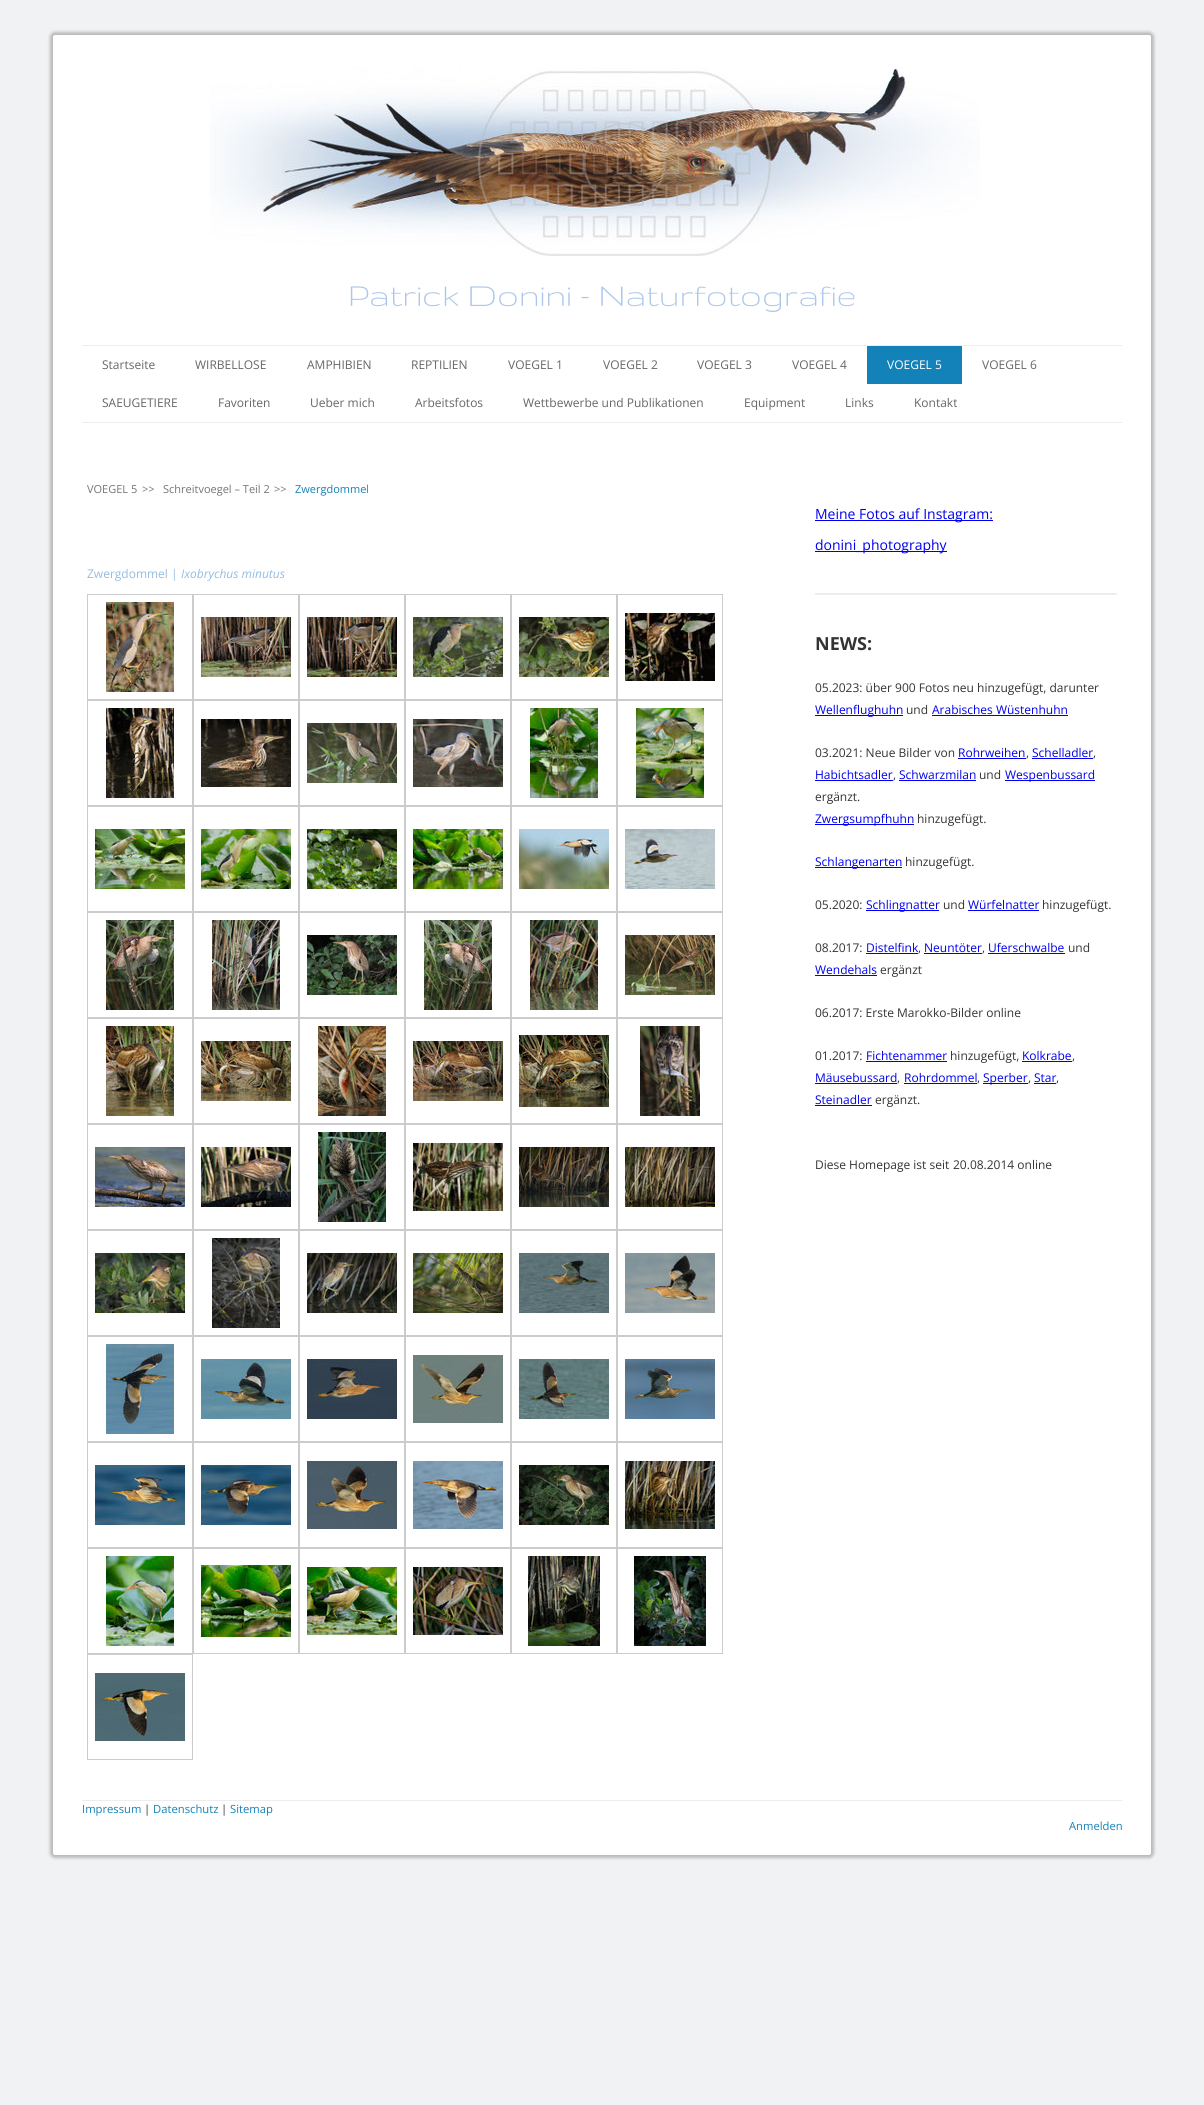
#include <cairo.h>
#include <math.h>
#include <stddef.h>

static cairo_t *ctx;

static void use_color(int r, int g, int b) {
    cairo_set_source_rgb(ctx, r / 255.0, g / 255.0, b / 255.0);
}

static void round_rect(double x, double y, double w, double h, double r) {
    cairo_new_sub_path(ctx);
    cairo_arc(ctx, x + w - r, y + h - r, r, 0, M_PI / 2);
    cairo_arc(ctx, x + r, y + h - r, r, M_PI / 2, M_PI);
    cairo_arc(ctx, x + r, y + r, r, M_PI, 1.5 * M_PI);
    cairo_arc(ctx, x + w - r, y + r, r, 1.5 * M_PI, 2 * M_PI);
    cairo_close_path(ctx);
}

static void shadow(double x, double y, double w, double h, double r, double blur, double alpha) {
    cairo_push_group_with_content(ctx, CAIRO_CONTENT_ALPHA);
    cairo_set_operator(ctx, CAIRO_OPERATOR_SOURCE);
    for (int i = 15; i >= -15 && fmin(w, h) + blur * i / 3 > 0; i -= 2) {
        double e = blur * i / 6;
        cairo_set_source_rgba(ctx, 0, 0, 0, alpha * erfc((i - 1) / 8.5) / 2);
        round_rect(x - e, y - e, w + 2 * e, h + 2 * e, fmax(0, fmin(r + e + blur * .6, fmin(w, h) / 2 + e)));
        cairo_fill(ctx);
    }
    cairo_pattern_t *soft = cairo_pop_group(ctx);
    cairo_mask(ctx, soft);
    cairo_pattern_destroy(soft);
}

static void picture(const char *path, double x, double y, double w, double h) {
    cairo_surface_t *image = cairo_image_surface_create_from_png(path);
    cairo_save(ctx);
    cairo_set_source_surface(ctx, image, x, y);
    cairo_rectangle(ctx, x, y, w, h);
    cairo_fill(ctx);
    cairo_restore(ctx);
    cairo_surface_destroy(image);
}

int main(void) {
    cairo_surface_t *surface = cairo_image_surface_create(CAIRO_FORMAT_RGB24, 1204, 2105);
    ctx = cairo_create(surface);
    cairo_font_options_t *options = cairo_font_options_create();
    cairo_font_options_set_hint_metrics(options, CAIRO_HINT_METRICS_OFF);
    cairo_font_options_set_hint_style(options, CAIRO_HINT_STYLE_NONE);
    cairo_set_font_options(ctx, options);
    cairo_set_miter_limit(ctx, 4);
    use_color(241, 242, 243);
    cairo_paint(ctx);
    use_color(51, 51, 51);
    shadow(50, 32, 1104, 1826, 5, 1.5, 0.3);
    use_color(255, 255, 255);
    round_rect(53, 35, 1098, 1820, 2);
    cairo_fill(ctx);
    picture("img1.png", 210, 66, 770, 190);
    cairo_select_font_face(ctx, "Gruppo", CAIRO_FONT_SLANT_NORMAL, CAIRO_FONT_WEIGHT_NORMAL);
    cairo_set_font_size(ctx, 36);
    use_color(173, 199, 233);
    cairo_move_to(ctx, 348, 306);
    cairo_show_text(ctx, "Patrick Donini - Naturfotografie");
    use_color(237, 237, 237);
    cairo_rectangle(ctx, 82, 345, 1040, 1);
    cairo_fill(ctx);
    cairo_rectangle(ctx, 82, 422, 1040, 1);
    cairo_fill(ctx);
    cairo_select_font_face(ctx, "Open Sans", CAIRO_FONT_SLANT_NORMAL, CAIRO_FONT_WEIGHT_NORMAL);
    cairo_set_font_size(ctx, 12);
    use_color(102, 102, 102);
    cairo_move_to(ctx, 102, 369);
    cairo_show_text(ctx, "Startseite");
    cairo_move_to(ctx, 195, 369);
    cairo_show_text(ctx, "WIRBELLOSE");
    cairo_move_to(ctx, 307, 369);
    cairo_show_text(ctx, "AMPHIBIEN");
    cairo_move_to(ctx, 411, 369);
    cairo_show_text(ctx, "REPTILIEN");
    cairo_move_to(ctx, 508, 369);
    cairo_show_text(ctx, "VOEGEL 1");
    cairo_move_to(ctx, 603, 369);
    cairo_show_text(ctx, "VOEGEL 2");
    cairo_move_to(ctx, 697, 369);
    cairo_show_text(ctx, "VOEGEL 3");
    cairo_move_to(ctx, 792, 369);
    cairo_show_text(ctx, "VOEGEL 4");
    use_color(19, 130, 185);
    cairo_rectangle(ctx, 867, 346, 95, 38);
    cairo_fill(ctx);
    use_color(255, 255, 255);
    cairo_move_to(ctx, 887, 369);
    cairo_show_text(ctx, "VOEGEL 5");
    use_color(102, 102, 102);
    cairo_move_to(ctx, 982, 369);
    cairo_show_text(ctx, "VOEGEL 6");
    cairo_move_to(ctx, 102, 407);
    cairo_show_text(ctx, "SAEUGETIERE");
    cairo_move_to(ctx, 218, 407);
    cairo_show_text(ctx, "Favoriten");
    cairo_move_to(ctx, 310, 407);
    cairo_show_text(ctx, "Ueber mich");
    cairo_move_to(ctx, 415, 407);
    cairo_show_text(ctx, "Arbeitsfotos");
    cairo_move_to(ctx, 523, 407);
    cairo_show_text(ctx, "Wettbewerbe und Publikationen");
    cairo_move_to(ctx, 744, 407);
    cairo_show_text(ctx, "Equipment");
    cairo_move_to(ctx, 845, 407);
    cairo_show_text(ctx, "Links");
    cairo_move_to(ctx, 914, 407);
    cairo_show_text(ctx, "Kontakt");
    cairo_set_font_size(ctx, 11);
    use_color(117, 117, 117);
    cairo_move_to(ctx, 87, 493);
    cairo_show_text(ctx, "VOEGEL 5");
    cairo_move_to(ctx, 142, 493);
    cairo_show_text(ctx, ">>");
    cairo_move_to(ctx, 163, 493);
    cairo_show_text(ctx, "Schreitvoegel – Teil 2");
    cairo_move_to(ctx, 274, 493);
    cairo_show_text(ctx, ">>");
    use_color(19, 130, 185);
    cairo_move_to(ctx, 295, 493);
    cairo_show_text(ctx, "Zwergdommel");
    cairo_set_font_size(ctx, 12);
    use_color(148, 189, 225);
    cairo_move_to(ctx, 87, 578);
    cairo_show_text(ctx, "Zwergdommel |");
    cairo_select_font_face(ctx, "Open Sans", CAIRO_FONT_SLANT_ITALIC, CAIRO_FONT_WEIGHT_NORMAL);
    cairo_move_to(ctx, 181, 578);
    cairo_show_text(ctx, "Ixobrychus minutus");
    cairo_rectangle(ctx, 87.5, 594.5, 105, 105);
    use_color(204, 204, 204);
    cairo_set_line_width(ctx, 1);
    cairo_stroke(ctx);
    picture("img2.png", 106, 602, 68, 90);
    cairo_rectangle(ctx, 193.5, 594.5, 105, 105);
    cairo_stroke(ctx);
    picture("img3.png", 201, 617, 90, 60);
    cairo_rectangle(ctx, 299.5, 594.5, 105, 105);
    cairo_stroke(ctx);
    picture("img4.png", 307, 617, 90, 60);
    cairo_rectangle(ctx, 405.5, 594.5, 105, 105);
    cairo_stroke(ctx);
    picture("img5.png", 413, 617, 90, 60);
    cairo_rectangle(ctx, 511.5, 594.5, 105, 105);
    cairo_stroke(ctx);
    picture("img6.png", 519, 617, 90, 60);
    cairo_rectangle(ctx, 617.5, 594.5, 105, 105);
    cairo_stroke(ctx);
    picture("img7.png", 625, 613, 90, 68);
    cairo_rectangle(ctx, 87.5, 700.5, 105, 105);
    cairo_stroke(ctx);
    picture("img8.png", 106, 708, 68, 90);
    cairo_rectangle(ctx, 193.5, 700.5, 105, 105);
    cairo_stroke(ctx);
    picture("img9.png", 201, 719, 90, 68);
    cairo_rectangle(ctx, 299.5, 700.5, 105, 105);
    cairo_stroke(ctx);
    picture("img10.png", 307, 723, 90, 60);
    cairo_rectangle(ctx, 405.5, 700.5, 105, 105);
    cairo_stroke(ctx);
    picture("img11.png", 413, 719, 90, 68);
    cairo_rectangle(ctx, 511.5, 700.5, 105, 105);
    cairo_stroke(ctx);
    picture("img12.png", 530, 708, 68, 90);
    cairo_rectangle(ctx, 617.5, 700.5, 105, 105);
    cairo_stroke(ctx);
    picture("img13.png", 636, 708, 68, 90);
    cairo_rectangle(ctx, 87.5, 806.5, 105, 105);
    cairo_stroke(ctx);
    picture("img14.png", 95, 829, 90, 60);
    cairo_rectangle(ctx, 193.5, 806.5, 105, 105);
    cairo_stroke(ctx);
    picture("img15.png", 201, 829, 90, 60);
    cairo_rectangle(ctx, 299.5, 806.5, 105, 105);
    cairo_stroke(ctx);
    picture("img16.png", 307, 829, 90, 60);
    cairo_rectangle(ctx, 405.5, 806.5, 105, 105);
    cairo_stroke(ctx);
    picture("img17.png", 413, 829, 90, 60);
    cairo_rectangle(ctx, 511.5, 806.5, 105, 105);
    cairo_stroke(ctx);
    picture("img18.png", 519, 829, 90, 60);
    cairo_rectangle(ctx, 617.5, 806.5, 105, 105);
    cairo_stroke(ctx);
    picture("img19.png", 625, 829, 90, 60);
    cairo_rectangle(ctx, 87.5, 912.5, 105, 105);
    cairo_stroke(ctx);
    picture("img20.png", 106, 920, 68, 90);
    cairo_rectangle(ctx, 193.5, 912.5, 105, 105);
    cairo_stroke(ctx);
    picture("img21.png", 212, 920, 68, 90);
    cairo_rectangle(ctx, 299.5, 912.5, 105, 105);
    cairo_stroke(ctx);
    picture("img22.png", 307, 935, 90, 60);
    cairo_rectangle(ctx, 405.5, 912.5, 105, 105);
    cairo_stroke(ctx);
    picture("img23.png", 424, 920, 68, 90);
    cairo_rectangle(ctx, 511.5, 912.5, 105, 105);
    cairo_stroke(ctx);
    picture("img24.png", 530, 920, 68, 90);
    cairo_rectangle(ctx, 617.5, 912.5, 105, 105);
    cairo_stroke(ctx);
    picture("img25.png", 625, 935, 90, 60);
    cairo_rectangle(ctx, 87.5, 1018.5, 105, 105);
    cairo_stroke(ctx);
    picture("img26.png", 106, 1026, 68, 90);
    cairo_rectangle(ctx, 193.5, 1018.5, 105, 105);
    cairo_stroke(ctx);
    picture("img27.png", 201, 1041, 90, 60);
    cairo_rectangle(ctx, 299.5, 1018.5, 105, 105);
    cairo_stroke(ctx);
    picture("img28.png", 318, 1026, 68, 90);
    cairo_rectangle(ctx, 405.5, 1018.5, 105, 105);
    cairo_stroke(ctx);
    picture("img29.png", 413, 1041, 90, 60);
    cairo_rectangle(ctx, 511.5, 1018.5, 105, 105);
    cairo_stroke(ctx);
    picture("img30.png", 519, 1035, 90, 72);
    cairo_rectangle(ctx, 617.5, 1018.5, 105, 105);
    cairo_stroke(ctx);
    picture("img31.png", 640, 1026, 60, 90);
    cairo_rectangle(ctx, 87.5, 1124.5, 105, 105);
    cairo_stroke(ctx);
    picture("img32.png", 95, 1147, 90, 60);
    cairo_rectangle(ctx, 193.5, 1124.5, 105, 105);
    cairo_stroke(ctx);
    picture("img33.png", 201, 1147, 90, 60);
    cairo_rectangle(ctx, 299.5, 1124.5, 105, 105);
    cairo_stroke(ctx);
    picture("img34.png", 318, 1132, 68, 90);
    cairo_rectangle(ctx, 405.5, 1124.5, 105, 105);
    cairo_stroke(ctx);
    picture("img35.png", 413, 1143, 90, 68);
    cairo_rectangle(ctx, 511.5, 1124.5, 105, 105);
    cairo_stroke(ctx);
    picture("img36.png", 519, 1147, 90, 60);
    cairo_rectangle(ctx, 617.5, 1124.5, 105, 105);
    cairo_stroke(ctx);
    picture("img37.png", 625, 1147, 90, 60);
    cairo_rectangle(ctx, 87.5, 1230.5, 105, 105);
    cairo_stroke(ctx);
    picture("img38.png", 95, 1253, 90, 60);
    cairo_rectangle(ctx, 193.5, 1230.5, 105, 105);
    cairo_stroke(ctx);
    picture("img39.png", 212, 1238, 68, 90);
    cairo_rectangle(ctx, 299.5, 1230.5, 105, 105);
    cairo_stroke(ctx);
    picture("img40.png", 307, 1253, 90, 60);
    cairo_rectangle(ctx, 405.5, 1230.5, 105, 105);
    cairo_stroke(ctx);
    picture("img41.png", 413, 1253, 90, 60);
    cairo_rectangle(ctx, 511.5, 1230.5, 105, 105);
    cairo_stroke(ctx);
    picture("img42.png", 519, 1253, 90, 60);
    cairo_rectangle(ctx, 617.5, 1230.5, 105, 105);
    cairo_stroke(ctx);
    picture("img43.png", 625, 1253, 90, 60);
    cairo_rectangle(ctx, 87.5, 1336.5, 105, 105);
    cairo_stroke(ctx);
    picture("img44.png", 106, 1344, 68, 90);
    cairo_rectangle(ctx, 193.5, 1336.5, 105, 105);
    cairo_stroke(ctx);
    picture("img45.png", 201, 1359, 90, 60);
    cairo_rectangle(ctx, 299.5, 1336.5, 105, 105);
    cairo_stroke(ctx);
    picture("img46.png", 307, 1359, 90, 60);
    cairo_rectangle(ctx, 405.5, 1336.5, 105, 105);
    cairo_stroke(ctx);
    picture("img47.png", 413, 1355, 90, 68);
    cairo_rectangle(ctx, 511.5, 1336.5, 105, 105);
    cairo_stroke(ctx);
    picture("img48.png", 519, 1359, 90, 60);
    cairo_rectangle(ctx, 617.5, 1336.5, 105, 105);
    cairo_stroke(ctx);
    picture("img49.png", 625, 1359, 90, 60);
    cairo_rectangle(ctx, 87.5, 1442.5, 105, 105);
    cairo_stroke(ctx);
    picture("img50.png", 95, 1465, 90, 60);
    cairo_rectangle(ctx, 193.5, 1442.5, 105, 105);
    cairo_stroke(ctx);
    picture("img51.png", 201, 1465, 90, 60);
    cairo_rectangle(ctx, 299.5, 1442.5, 105, 105);
    cairo_stroke(ctx);
    picture("img52.png", 307, 1461, 90, 68);
    cairo_rectangle(ctx, 405.5, 1442.5, 105, 105);
    cairo_stroke(ctx);
    picture("img53.png", 413, 1461, 90, 68);
    cairo_rectangle(ctx, 511.5, 1442.5, 105, 105);
    cairo_stroke(ctx);
    picture("img54.png", 519, 1465, 90, 60);
    cairo_rectangle(ctx, 617.5, 1442.5, 105, 105);
    cairo_stroke(ctx);
    picture("img55.png", 625, 1461, 90, 68);
    cairo_rectangle(ctx, 87.5, 1548.5, 105, 105);
    cairo_stroke(ctx);
    picture("img56.png", 106, 1556, 68, 90);
    cairo_rectangle(ctx, 193.5, 1548.5, 105, 105);
    cairo_stroke(ctx);
    picture("img57.png", 201, 1565, 90, 72);
    cairo_rectangle(ctx, 299.5, 1548.5, 105, 105);
    cairo_stroke(ctx);
    picture("img58.png", 307, 1567, 90, 68);
    cairo_rectangle(ctx, 405.5, 1548.5, 105, 105);
    cairo_stroke(ctx);
    picture("img59.png", 413, 1567, 90, 68);
    cairo_rectangle(ctx, 511.5, 1548.5, 105, 105);
    cairo_stroke(ctx);
    picture("img60.png", 528, 1556, 72, 90);
    cairo_rectangle(ctx, 617.5, 1548.5, 105, 105);
    cairo_stroke(ctx);
    picture("img61.png", 634, 1556, 72, 90);
    cairo_rectangle(ctx, 87.5, 1654.5, 105, 105);
    cairo_stroke(ctx);
    picture("img62.png", 95, 1673, 90, 68);
    use_color(0, 0, 238);
    cairo_rectangle(ctx, 815, 520, 178, 1);
    cairo_fill(ctx);
    cairo_select_font_face(ctx, "Open Sans", CAIRO_FONT_SLANT_NORMAL, CAIRO_FONT_WEIGHT_NORMAL);
    cairo_set_font_size(ctx, 14);
    cairo_move_to(ctx, 815, 519);
    cairo_show_text(ctx, "Meine Fotos auf Instagram:");
    cairo_rectangle(ctx, 815, 551, 132, 1);
    cairo_fill(ctx);
    cairo_move_to(ctx, 815, 550);
    cairo_show_text(ctx, "donini_photography");
    use_color(237, 237, 237);
    cairo_rectangle(ctx, 815, 593, 302, 2);
    cairo_fill(ctx);
    cairo_select_font_face(ctx, "Open Sans", CAIRO_FONT_SLANT_NORMAL, CAIRO_FONT_WEIGHT_BOLD);
    cairo_set_font_size(ctx, 18);
    use_color(51, 51, 51);
    cairo_move_to(ctx, 815, 650);
    cairo_show_text(ctx, "NEWS:");
    cairo_select_font_face(ctx, "Open Sans", CAIRO_FONT_SLANT_NORMAL, CAIRO_FONT_WEIGHT_NORMAL);
    cairo_set_font_size(ctx, 12);
    cairo_move_to(ctx, 815, 692);
    cairo_show_text(ctx, "05.2023: über 900 Fotos neu hinzugefügt, darunter");
    use_color(0, 0, 238);
    cairo_rectangle(ctx, 815, 715, 88, 1);
    cairo_fill(ctx);
    cairo_move_to(ctx, 815, 714);
    cairo_show_text(ctx, "Wellenflughuhn");
    use_color(51, 51, 51);
    cairo_move_to(ctx, 906, 714);
    cairo_show_text(ctx, "und");
    use_color(0, 0, 238);
    cairo_move_to(ctx, 932, 714);
    cairo_show_text(ctx, "Arabisches Wüstenhuhn");
    cairo_rectangle(ctx, 932, 715, 136, 1);
    cairo_fill(ctx);
    use_color(51, 51, 51);
    cairo_move_to(ctx, 815, 757);
    cairo_show_text(ctx, "03.2021: Neue Bilder von");
    use_color(0, 0, 238);
    cairo_move_to(ctx, 958, 757);
    cairo_show_text(ctx, "Rohrweihen");
    use_color(51, 51, 51);
    cairo_move_to(ctx, 1026, 757);
    cairo_show_text(ctx, ",");
    use_color(0, 0, 238);
    cairo_rectangle(ctx, 958, 758, 68, 1);
    cairo_fill(ctx);
    cairo_move_to(ctx, 1032, 757);
    cairo_show_text(ctx, "Schelladler");
    use_color(51, 51, 51);
    cairo_move_to(ctx, 1093, 757);
    cairo_show_text(ctx, ",");
    use_color(0, 0, 238);
    cairo_rectangle(ctx, 1032, 758, 61, 1);
    cairo_fill(ctx);
    cairo_move_to(ctx, 815, 779);
    cairo_show_text(ctx, "Habichtsadler");
    use_color(51, 51, 51);
    cairo_move_to(ctx, 893, 779);
    cairo_show_text(ctx, ",");
    use_color(0, 0, 238);
    cairo_rectangle(ctx, 815, 780, 78, 1);
    cairo_fill(ctx);
    cairo_rectangle(ctx, 899, 780, 77, 1);
    cairo_fill(ctx);
    cairo_move_to(ctx, 899, 779);
    cairo_show_text(ctx, "Schwarzmilan");
    use_color(51, 51, 51);
    cairo_move_to(ctx, 979, 779);
    cairo_show_text(ctx, "und");
    use_color(0, 0, 238);
    cairo_rectangle(ctx, 1005, 780, 90, 1);
    cairo_fill(ctx);
    cairo_move_to(ctx, 1005, 779);
    cairo_show_text(ctx, "Wespenbussard");
    use_color(51, 51, 51);
    cairo_move_to(ctx, 815, 801);
    cairo_show_text(ctx, "ergänzt.");
    use_color(0, 0, 238);
    cairo_rectangle(ctx, 815, 824, 99, 1);
    cairo_fill(ctx);
    cairo_move_to(ctx, 815, 823);
    cairo_show_text(ctx, "Zwergsumpfhuhn");
    use_color(51, 51, 51);
    cairo_move_to(ctx, 917, 823);
    cairo_show_text(ctx, "hinzugefügt.");
    use_color(0, 0, 238);
    cairo_rectangle(ctx, 815, 867, 87, 1);
    cairo_fill(ctx);
    cairo_move_to(ctx, 815, 866);
    cairo_show_text(ctx, "Schlangenarten");
    use_color(51, 51, 51);
    cairo_move_to(ctx, 905, 866);
    cairo_show_text(ctx, "hinzugefügt.");
    cairo_move_to(ctx, 815, 909);
    cairo_show_text(ctx, "05.2020:");
    use_color(0, 0, 238);
    cairo_rectangle(ctx, 866, 910, 73, 1);
    cairo_fill(ctx);
    cairo_move_to(ctx, 866, 909);
    cairo_show_text(ctx, "Schlingnatter");
    use_color(51, 51, 51);
    cairo_move_to(ctx, 943, 909);
    cairo_show_text(ctx, "und");
    use_color(0, 0, 238);
    cairo_move_to(ctx, 968, 909);
    cairo_show_text(ctx, "Würfelnatter");
    cairo_rectangle(ctx, 968, 910, 71, 1);
    cairo_fill(ctx);
    use_color(51, 51, 51);
    cairo_move_to(ctx, 1042, 909);
    cairo_show_text(ctx, "hinzugefügt.");
    cairo_move_to(ctx, 815, 952);
    cairo_show_text(ctx, "08.2017:");
    use_color(0, 0, 238);
    cairo_move_to(ctx, 866, 952);
    cairo_show_text(ctx, "Distelfink");
    use_color(51, 51, 51);
    cairo_move_to(ctx, 918, 952);
    cairo_show_text(ctx, ",");
    use_color(0, 0, 238);
    cairo_rectangle(ctx, 866, 953, 52, 1);
    cairo_fill(ctx);
    cairo_move_to(ctx, 924, 952);
    cairo_show_text(ctx, "Neuntöter");
    use_color(51, 51, 51);
    cairo_move_to(ctx, 982, 952);
    cairo_show_text(ctx, ",");
    use_color(0, 0, 238);
    cairo_rectangle(ctx, 924, 953, 58, 1);
    cairo_fill(ctx);
    cairo_rectangle(ctx, 988, 953, 77, 1);
    cairo_fill(ctx);
    cairo_move_to(ctx, 988, 952);
    cairo_show_text(ctx, "Uferschwalbe");
    use_color(51, 51, 51);
    cairo_move_to(ctx, 1068, 952);
    cairo_show_text(ctx, "und");
    use_color(0, 0, 238);
    cairo_move_to(ctx, 815, 974);
    cairo_show_text(ctx, "Wendehals");
    cairo_rectangle(ctx, 815, 975, 62, 1);
    cairo_fill(ctx);
    use_color(51, 51, 51);
    cairo_move_to(ctx, 880, 974);
    cairo_show_text(ctx, "ergänzt");
    cairo_move_to(ctx, 815, 1017);
    cairo_show_text(ctx, "06.2017: Erste Marokko-Bilder online");
    cairo_move_to(ctx, 815, 1060);
    cairo_show_text(ctx, "01.2017:");
    use_color(0, 0, 238);
    cairo_move_to(ctx, 866, 1060);
    cairo_show_text(ctx, "Fichtenammer");
    cairo_rectangle(ctx, 866, 1061, 81, 1);
    cairo_fill(ctx);
    use_color(51, 51, 51);
    cairo_move_to(ctx, 950, 1060);
    cairo_show_text(ctx, "hinzugefügt,");
    use_color(0, 0, 238);
    cairo_move_to(ctx, 1022, 1060);
    cairo_show_text(ctx, "Kolkrabe");
    use_color(51, 51, 51);
    cairo_move_to(ctx, 1072, 1060);
    cairo_show_text(ctx, ",");
    use_color(0, 0, 238);
    cairo_rectangle(ctx, 1022, 1061, 50, 1);
    cairo_fill(ctx);
    cairo_move_to(ctx, 815, 1082);
    cairo_show_text(ctx, "Mäusebussard");
    use_color(51, 51, 51);
    cairo_move_to(ctx, 897, 1082);
    cairo_show_text(ctx, ",");
    use_color(0, 0, 238);
    cairo_rectangle(ctx, 815, 1083, 82, 1);
    cairo_fill(ctx);
    cairo_move_to(ctx, 904, 1082);
    cairo_show_text(ctx, "Rohrdommel");
    use_color(51, 51, 51);
    cairo_move_to(ctx, 977, 1082);
    cairo_show_text(ctx, ",");
    use_color(0, 0, 238);
    cairo_rectangle(ctx, 904, 1083, 73, 1);
    cairo_fill(ctx);
    cairo_rectangle(ctx, 983, 1083, 45, 1);
    cairo_fill(ctx);
    cairo_move_to(ctx, 983, 1082);
    cairo_show_text(ctx, "Sperber");
    use_color(51, 51, 51);
    cairo_move_to(ctx, 1028, 1082);
    cairo_show_text(ctx, ",");
    use_color(0, 0, 238);
    cairo_move_to(ctx, 1034, 1082);
    cairo_show_text(ctx, "Star");
    use_color(51, 51, 51);
    cairo_move_to(ctx, 1056, 1082);
    cairo_show_text(ctx, ",");
    use_color(0, 0, 238);
    cairo_rectangle(ctx, 1034, 1083, 22, 1);
    cairo_fill(ctx);
    cairo_move_to(ctx, 815, 1104);
    cairo_show_text(ctx, "Steinadler");
    cairo_rectangle(ctx, 815, 1105, 57, 1);
    cairo_fill(ctx);
    use_color(51, 51, 51);
    cairo_move_to(ctx, 875, 1104);
    cairo_show_text(ctx, "ergänzt.");
    cairo_move_to(ctx, 815, 1169);
    cairo_show_text(ctx, "Diese Homepage ist seit");
    cairo_move_to(ctx, 953, 1169);
    cairo_show_text(ctx, "20.08.2014 online");
    use_color(237, 237, 237);
    cairo_rectangle(ctx, 82, 1800, 1040, 1);
    cairo_fill(ctx);
    cairo_set_font_size(ctx, 11.25);
    use_color(19, 130, 185);
    cairo_move_to(ctx, 82, 1813);
    cairo_show_text(ctx, "Impressum");
    use_color(51, 51, 51);
    cairo_move_to(ctx, 144, 1813);
    cairo_show_text(ctx, "|");
    use_color(19, 130, 185);
    cairo_move_to(ctx, 153, 1813);
    cairo_show_text(ctx, "Datenschutz");
    use_color(51, 51, 51);
    cairo_move_to(ctx, 221, 1813);
    cairo_show_text(ctx, "|");
    use_color(19, 130, 185);
    cairo_move_to(ctx, 230, 1813);
    cairo_show_text(ctx, "Sitemap");
    cairo_move_to(ctx, 1069, 1830);
    cairo_show_text(ctx, "Anmelden");
    cairo_surface_write_to_png(surface, "result.png");
    cairo_font_options_destroy(options);
    cairo_destroy(ctx);
    cairo_surface_destroy(surface);
    return 0;
}
